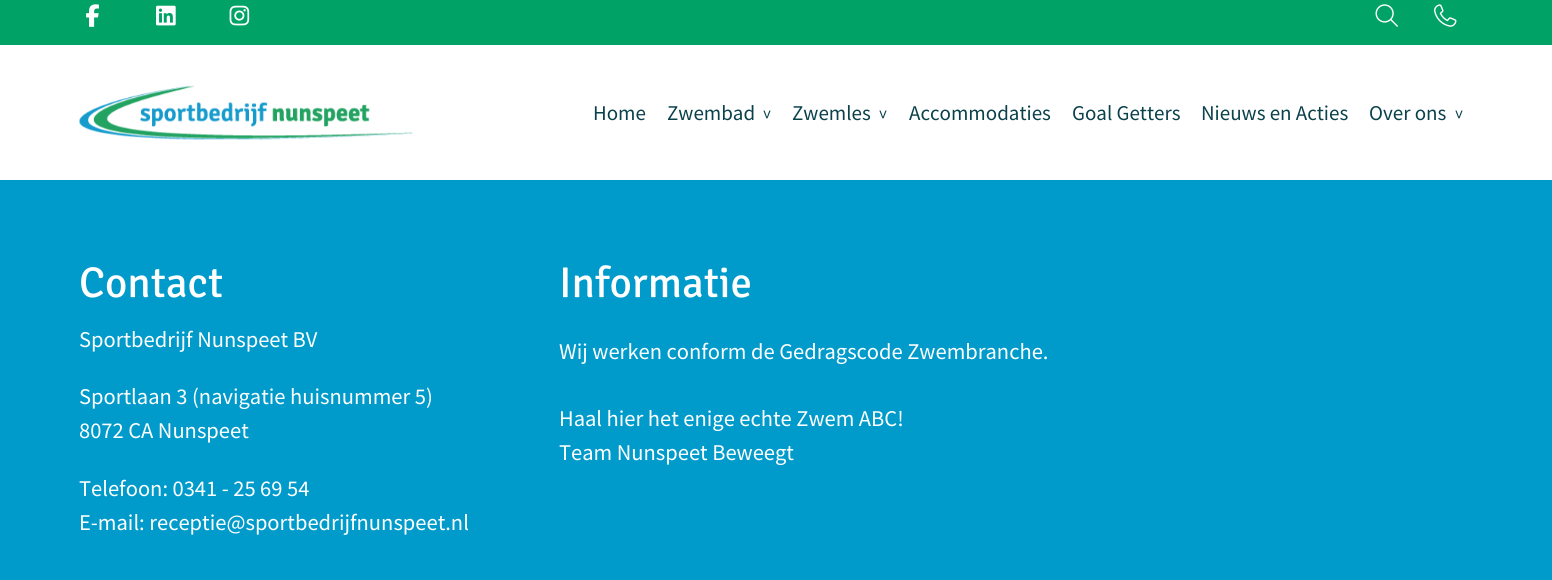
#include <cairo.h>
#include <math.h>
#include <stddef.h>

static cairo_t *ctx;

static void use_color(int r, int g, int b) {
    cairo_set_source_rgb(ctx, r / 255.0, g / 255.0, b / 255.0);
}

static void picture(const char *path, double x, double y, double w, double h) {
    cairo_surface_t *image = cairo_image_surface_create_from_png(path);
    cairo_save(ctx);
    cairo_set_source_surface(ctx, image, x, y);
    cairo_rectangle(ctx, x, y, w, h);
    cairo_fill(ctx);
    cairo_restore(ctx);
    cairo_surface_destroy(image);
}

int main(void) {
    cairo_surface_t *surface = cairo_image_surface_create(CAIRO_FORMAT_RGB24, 1552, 580);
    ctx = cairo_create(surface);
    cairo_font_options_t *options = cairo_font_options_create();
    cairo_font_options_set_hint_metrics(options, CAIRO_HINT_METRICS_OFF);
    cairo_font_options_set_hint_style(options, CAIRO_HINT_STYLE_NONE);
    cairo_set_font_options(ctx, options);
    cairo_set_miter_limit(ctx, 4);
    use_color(255, 255, 255);
    cairo_paint(ctx);
    use_color(0, 163, 101);
    cairo_rectangle(ctx, 0, 0, 1552, 45);
    cairo_fill(ctx);
    picture("img1.png", 86, 4, 13, 23);
    picture("img2.png", 156, 5, 20, 21);
    picture("img3.png", 229, 5, 21, 21);
    picture("img4.png", 1375, 4, 23, 23);
    picture("img5.png", 1434, 4, 23, 23);
    picture("img6.png", 79, 85, 334, 55);
    cairo_select_font_face(ctx, "Source Sans Pro", CAIRO_FONT_SLANT_NORMAL, CAIRO_FONT_WEIGHT_NORMAL);
    cairo_set_font_size(ctx, 21);
    use_color(10, 65, 75);
    cairo_move_to(ctx, 593, 120);
    cairo_show_text(ctx, "Home");
    cairo_move_to(ctx, 667, 120);
    cairo_show_text(ctx, "Zwembad");
    cairo_set_font_size(ctx, 18);
    cairo_save(ctx);
    cairo_translate(ctx, 761, 110);
    cairo_rotate(ctx, 90 * M_PI / 180);
    cairo_move_to(ctx, 0, 0);
    cairo_show_text(ctx, ">");
    cairo_restore(ctx);
    cairo_set_font_size(ctx, 21);
    cairo_move_to(ctx, 792, 120);
    cairo_show_text(ctx, "Zwemles");
    cairo_set_font_size(ctx, 18);
    cairo_save(ctx);
    cairo_translate(ctx, 877, 110);
    cairo_rotate(ctx, 90 * M_PI / 180);
    cairo_move_to(ctx, 0, 0);
    cairo_show_text(ctx, ">");
    cairo_restore(ctx);
    cairo_set_font_size(ctx, 21);
    cairo_move_to(ctx, 909, 120);
    cairo_show_text(ctx, "Accommodaties");
    cairo_move_to(ctx, 1072, 120);
    cairo_show_text(ctx, "Goal Getters");
    cairo_move_to(ctx, 1201, 120);
    cairo_show_text(ctx, "Nieuws en Acties");
    cairo_move_to(ctx, 1369, 120);
    cairo_show_text(ctx, "Over ons");
    cairo_set_font_size(ctx, 18);
    cairo_save(ctx);
    cairo_translate(ctx, 1453, 110);
    cairo_rotate(ctx, 90 * M_PI / 180);
    cairo_move_to(ctx, 0, 0);
    cairo_show_text(ctx, ">");
    cairo_restore(ctx);
    use_color(0, 155, 203);
    cairo_rectangle(ctx, 0, 180, 1552, 400);
    cairo_fill(ctx);
    cairo_select_font_face(ctx, "Signika Light", CAIRO_FONT_SLANT_NORMAL, CAIRO_FONT_WEIGHT_NORMAL);
    cairo_set_font_size(ctx, 43);
    use_color(255, 255, 255);
    cairo_move_to(ctx, 79, 297);
    cairo_show_text(ctx, "Contact");
    cairo_select_font_face(ctx, "Source Sans Pro", CAIRO_FONT_SLANT_NORMAL, CAIRO_FONT_WEIGHT_NORMAL);
    cairo_set_font_size(ctx, 22.5);
    cairo_move_to(ctx, 79, 347);
    cairo_show_text(ctx, "Sportbedrijf Nunspeet BV");
    cairo_move_to(ctx, 79, 404);
    cairo_show_text(ctx, "Sportlaan 3 (navigatie huisnummer 5)");
    cairo_move_to(ctx, 79, 438);
    cairo_show_text(ctx, "8072 CA Nunspeet");
    cairo_move_to(ctx, 79, 496);
    cairo_show_text(ctx, "Telefoon: 0341 - 25 69 54");
    cairo_move_to(ctx, 79, 530);
    cairo_show_text(ctx, "E-mail: receptie@sportbedrijfnunspeet.nl");
    cairo_select_font_face(ctx, "Signika Light", CAIRO_FONT_SLANT_NORMAL, CAIRO_FONT_WEIGHT_NORMAL);
    cairo_set_font_size(ctx, 43);
    cairo_move_to(ctx, 559, 297);
    cairo_show_text(ctx, "Informatie");
    cairo_select_font_face(ctx, "Source Sans Pro", CAIRO_FONT_SLANT_NORMAL, CAIRO_FONT_WEIGHT_NORMAL);
    cairo_set_font_size(ctx, 22.5);
    cairo_move_to(ctx, 559, 359);
    cairo_show_text(ctx, "Wij werken conform de Gedragscode Zwembranche.");
    cairo_move_to(ctx, 559, 426);
    cairo_show_text(ctx, "Haal hier het enige echte Zwem ABC!");
    cairo_move_to(ctx, 559, 460);
    cairo_show_text(ctx, "Team Nunspeet Beweegt");
    cairo_surface_write_to_png(surface, "result.png");
    cairo_font_options_destroy(options);
    cairo_destroy(ctx);
    cairo_surface_destroy(surface);
    return 0;
}
